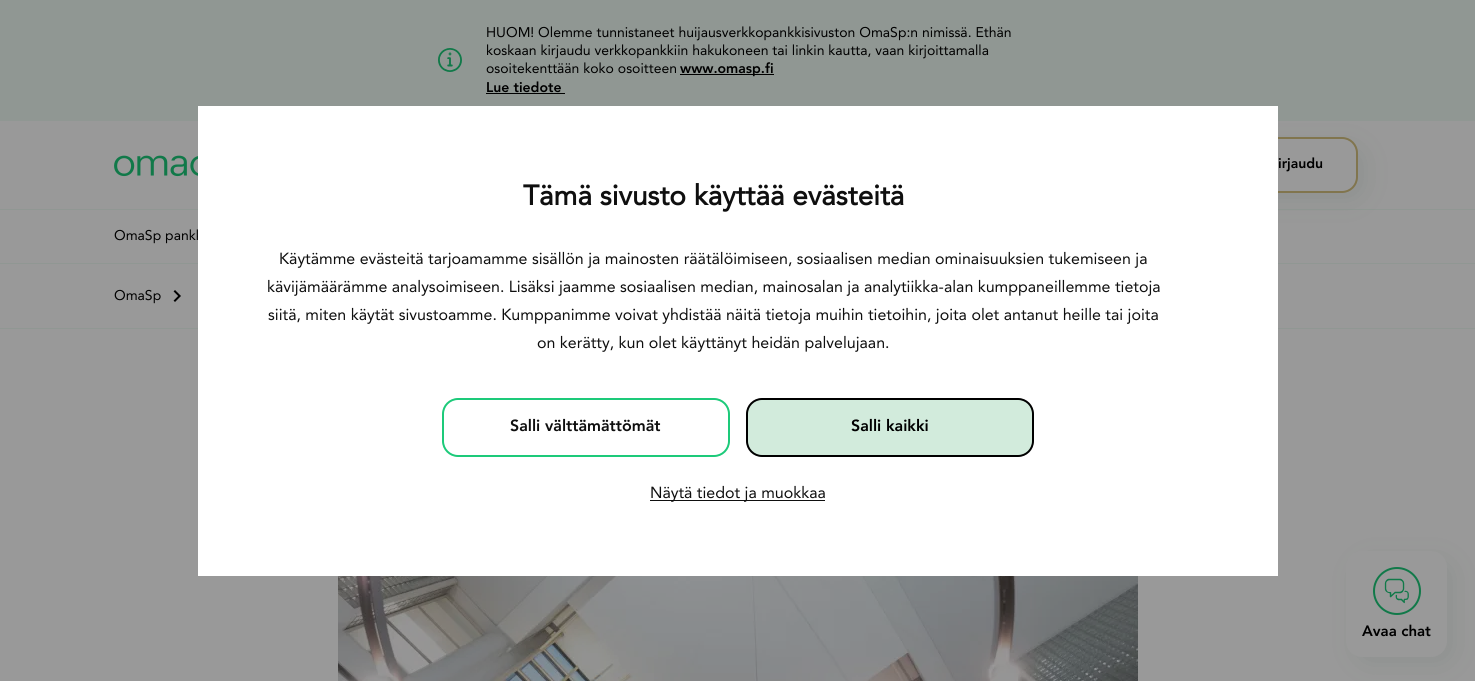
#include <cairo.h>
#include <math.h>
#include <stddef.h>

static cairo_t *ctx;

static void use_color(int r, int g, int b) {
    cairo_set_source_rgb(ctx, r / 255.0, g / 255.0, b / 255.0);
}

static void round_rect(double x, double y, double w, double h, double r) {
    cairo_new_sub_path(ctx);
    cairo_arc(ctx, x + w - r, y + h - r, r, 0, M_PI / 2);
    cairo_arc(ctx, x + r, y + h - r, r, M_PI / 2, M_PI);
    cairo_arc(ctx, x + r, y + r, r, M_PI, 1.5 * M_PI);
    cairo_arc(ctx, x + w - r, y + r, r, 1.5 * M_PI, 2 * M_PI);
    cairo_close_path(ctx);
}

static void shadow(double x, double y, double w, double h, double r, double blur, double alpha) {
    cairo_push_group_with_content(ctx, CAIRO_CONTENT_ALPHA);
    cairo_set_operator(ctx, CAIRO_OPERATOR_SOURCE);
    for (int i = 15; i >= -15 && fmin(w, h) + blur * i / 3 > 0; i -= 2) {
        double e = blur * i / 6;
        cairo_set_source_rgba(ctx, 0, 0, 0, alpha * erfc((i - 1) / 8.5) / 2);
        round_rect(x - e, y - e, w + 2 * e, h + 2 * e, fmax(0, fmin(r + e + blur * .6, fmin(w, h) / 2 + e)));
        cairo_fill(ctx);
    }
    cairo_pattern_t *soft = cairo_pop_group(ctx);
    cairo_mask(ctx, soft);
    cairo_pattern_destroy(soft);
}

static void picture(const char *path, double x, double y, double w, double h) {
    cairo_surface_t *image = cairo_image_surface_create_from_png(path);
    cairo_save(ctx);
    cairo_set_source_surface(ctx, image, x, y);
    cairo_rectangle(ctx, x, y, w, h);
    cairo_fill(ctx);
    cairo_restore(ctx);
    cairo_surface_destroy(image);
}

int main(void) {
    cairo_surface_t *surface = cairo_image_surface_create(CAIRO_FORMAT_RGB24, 1475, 681);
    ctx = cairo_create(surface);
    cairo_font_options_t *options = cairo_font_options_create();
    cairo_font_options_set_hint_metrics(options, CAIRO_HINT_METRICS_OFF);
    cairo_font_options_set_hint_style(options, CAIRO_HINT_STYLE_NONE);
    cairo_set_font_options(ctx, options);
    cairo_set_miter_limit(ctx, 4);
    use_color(153, 153, 153);
    cairo_paint(ctx);
    use_color(144, 151, 147);
    cairo_rectangle(ctx, 0, 0, 1475, 121);
    cairo_fill(ctx);
    picture("img1.png", 438, 48, 24, 24);
    cairo_select_font_face(ctx, "Avenir", CAIRO_FONT_SLANT_NORMAL, CAIRO_FONT_WEIGHT_NORMAL);
    cairo_set_font_size(ctx, 14);
    use_color(0, 0, 0);
    cairo_move_to(ctx, 486, 37);
    cairo_show_text(ctx, "HUOM! Olemme tunnistaneet huijausverkkopankkisivuston OmaSp:n nimissä. Ethän");
    cairo_move_to(ctx, 486, 55);
    cairo_show_text(ctx, "koskaan kirjaudu verkkopankkiin hakukoneen tai linkin kautta, vaan kirjoittamalla");
    cairo_move_to(ctx, 486, 73);
    cairo_show_text(ctx, "osoitekenttään koko osoitteen");
    cairo_rectangle(ctx, 680, 74, 94, 1);
    cairo_fill(ctx);
    cairo_select_font_face(ctx, "Avenir Black", CAIRO_FONT_SLANT_NORMAL, CAIRO_FONT_WEIGHT_NORMAL);
    cairo_move_to(ctx, 680, 73);
    cairo_show_text(ctx, "www.omasp.fi");
    cairo_move_to(ctx, 486, 92);
    cairo_show_text(ctx, "Lue tiedote");
    cairo_rectangle(ctx, 486, 93, 79, 1);
    cairo_fill(ctx);
    use_color(144, 151, 147);
    cairo_rectangle(ctx, 0, 209, 1475, 1);
    cairo_fill(ctx);
    picture("img2.png", 114, 155, 84, 22);
    use_color(50, 77, 63);
    shadow(1219, 145, 147, 56, 16, 12, 0.1);
    use_color(153, 153, 153);
    round_rect(1212, 138, 145, 54, 15);
    cairo_fill_preserve(ctx);
    use_color(129, 117, 78);
    cairo_stroke(ctx);
    use_color(0, 0, 0);
    cairo_move_to(ctx, 1278, 168);
    cairo_show_text(ctx, "irjaudu");
    use_color(144, 151, 147);
    cairo_rectangle(ctx, 0, 263, 1475, 1);
    cairo_fill(ctx);
    cairo_select_font_face(ctx, "Avenir", CAIRO_FONT_SLANT_NORMAL, CAIRO_FONT_WEIGHT_NORMAL);
    use_color(0, 0, 0);
    cairo_move_to(ctx, 114, 240);
    cairo_show_text(ctx, "OmaSp pankk");
    use_color(144, 151, 147);
    cairo_rectangle(ctx, 0, 328, 1475, 1);
    cairo_fill(ctx);
    use_color(0, 0, 0);
    cairo_move_to(ctx, 114, 300);
    cairo_show_text(ctx, "OmaSp");
    picture("img3.png", 173, 290, 8, 12);
    picture("img4.png", 338, 576, 800, 105);
    use_color(50, 77, 63);
    shadow(1354, 559, 101, 106, 16, 12, 0.1);
    use_color(153, 153, 153);
    round_rect(1346, 551, 101, 106, 16);
    cairo_fill(ctx);
    cairo_arc(ctx, 1397, 591, 23, 0, 2 * M_PI);
    use_color(17, 121, 73);
    cairo_stroke(ctx);
    picture("img5.png", 1384, 578, 25, 26);
    cairo_select_font_face(ctx, "Avenir Black", CAIRO_FONT_SLANT_NORMAL, CAIRO_FONT_WEIGHT_NORMAL);
    cairo_set_font_size(ctx, 15);
    use_color(0, 0, 0);
    cairo_move_to(ctx, 1362, 636);
    cairo_show_text(ctx, "Avaa chat");
    use_color(255, 255, 255);
    cairo_rectangle(ctx, 198, 106, 1080, 470);
    cairo_fill(ctx);
    cairo_select_font_face(ctx, "Avenir", CAIRO_FONT_SLANT_NORMAL, CAIRO_FONT_WEIGHT_BOLD);
    cairo_set_font_size(ctx, 28);
    use_color(15, 15, 15);
    cairo_move_to(ctx, 523, 205);
    cairo_show_text(ctx, "Tämä sivusto käyttää evästeitä");
    cairo_select_font_face(ctx, "Avenir", CAIRO_FONT_SLANT_NORMAL, CAIRO_FONT_WEIGHT_NORMAL);
    cairo_set_font_size(ctx, 16);
    cairo_move_to(ctx, 279, 264);
    cairo_show_text(ctx, "Käytämme evästeitä tarjoamamme sisällön ja mainosten räätälöimiseen, sosiaalisen median ominaisuuksien tukemiseen ja");
    cairo_move_to(ctx, 267, 292);
    cairo_show_text(ctx, "kävijämäärämme analysoimiseen. Lisäksi jaamme sosiaalisen median, mainosalan ja analytiikka-alan kumppaneillemme tietoja");
    cairo_move_to(ctx, 268, 320);
    cairo_show_text(ctx, "siitä, miten käytät sivustoamme. Kumppanimme voivat yhdistää näitä tietoja muihin tietoihin, joita olet antanut heille tai joita");
    cairo_move_to(ctx, 537, 348);
    cairo_show_text(ctx, "on kerätty, kun olet käyttänyt heidän palvelujaan.");
    round_rect(443, 399, 286, 57, 15);
    use_color(29, 202, 122);
    cairo_stroke(ctx);
    cairo_select_font_face(ctx, "Avenir Black", CAIRO_FONT_SLANT_NORMAL, CAIRO_FONT_WEIGHT_NORMAL);
    use_color(15, 15, 15);
    cairo_move_to(ctx, 510, 431);
    cairo_show_text(ctx, "Salli välttämättömät");
    use_color(210, 235, 220);
    round_rect(747, 399, 286, 57, 15);
    cairo_fill_preserve(ctx);
    use_color(0, 0, 0);
    cairo_stroke(ctx);
    cairo_move_to(ctx, 851, 431);
    cairo_show_text(ctx, "Salli kaikki");
    use_color(15, 15, 15);
    cairo_rectangle(ctx, 650, 500, 175, 1);
    cairo_fill(ctx);
    cairo_select_font_face(ctx, "Avenir", CAIRO_FONT_SLANT_NORMAL, CAIRO_FONT_WEIGHT_NORMAL);
    cairo_move_to(ctx, 650, 498);
    cairo_show_text(ctx, "Näytä tiedot ja muokkaa");
    cairo_surface_write_to_png(surface, "result.png");
    cairo_font_options_destroy(options);
    cairo_destroy(ctx);
    cairo_surface_destroy(surface);
    return 0;
}
